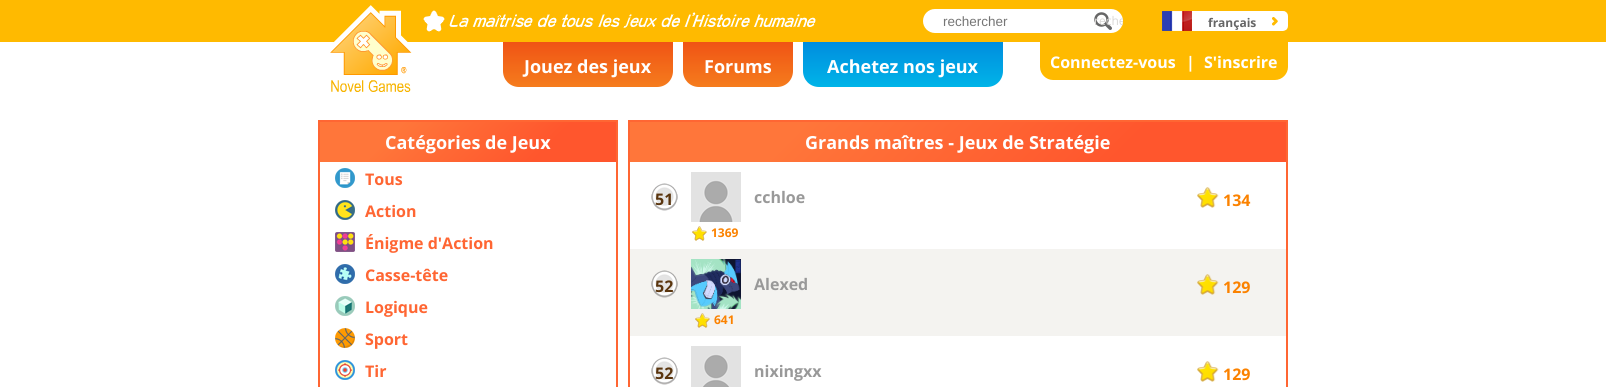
#include <cairo.h>
#include <math.h>
#include <stddef.h>

static cairo_t *ctx;

static void use_color(int r, int g, int b) {
    cairo_set_source_rgb(ctx, r / 255.0, g / 255.0, b / 255.0);
}

static void round_rect(double x, double y, double w, double h, double r) {
    cairo_new_sub_path(ctx);
    cairo_arc(ctx, x + w - r, y + h - r, r, 0, M_PI / 2);
    cairo_arc(ctx, x + r, y + h - r, r, M_PI / 2, M_PI);
    cairo_arc(ctx, x + r, y + r, r, M_PI, 1.5 * M_PI);
    cairo_arc(ctx, x + w - r, y + r, r, 1.5 * M_PI, 2 * M_PI);
    cairo_close_path(ctx);
}

static void picture(const char *path, double x, double y, double w, double h) {
    cairo_surface_t *image = cairo_image_surface_create_from_png(path);
    cairo_save(ctx);
    cairo_set_source_surface(ctx, image, x, y);
    cairo_rectangle(ctx, x, y, w, h);
    cairo_fill(ctx);
    cairo_restore(ctx);
    cairo_surface_destroy(image);
}

int main(void) {
    cairo_surface_t *surface = cairo_image_surface_create(CAIRO_FORMAT_RGB24, 1606, 387);
    ctx = cairo_create(surface);
    cairo_font_options_t *options = cairo_font_options_create();
    cairo_font_options_set_hint_metrics(options, CAIRO_HINT_METRICS_OFF);
    cairo_font_options_set_hint_style(options, CAIRO_HINT_STYLE_NONE);
    cairo_set_font_options(ctx, options);
    cairo_set_miter_limit(ctx, 4);
    cairo_pattern_t *gradient;
    use_color(255, 255, 255);
    cairo_paint(ctx);
    use_color(255, 186, 0);
    cairo_rectangle(ctx, 0, 0, 1606, 42);
    cairo_fill(ctx);
    picture("img1.png", 330, 5, 82, 87);
    picture("img2.png", 423, 10, 393, 22);
    use_color(255, 255, 255);
    round_rect(923, 9, 200, 24, 12);
    cairo_fill(ctx);
    cairo_select_font_face(ctx, "Liberation Sans", CAIRO_FONT_SLANT_NORMAL, CAIRO_FONT_WEIGHT_NORMAL);
    cairo_set_font_size(ctx, 13.5);
    use_color(117, 117, 117);
    cairo_move_to(ctx, 943, 26);
    cairo_show_text(ctx, "rechercher");
    picture("img3.png", 1094, 12, 18, 18);
    cairo_save(ctx);
    cairo_rectangle(ctx, 1093, 9, 30, 24);
    cairo_clip(ctx);
    cairo_select_font_face(ctx, "Open Sans", CAIRO_FONT_SLANT_NORMAL, CAIRO_FONT_WEIGHT_NORMAL);
    cairo_set_font_size(ctx, 12);
    use_color(217, 215, 213);
    cairo_move_to(ctx, 1094, 25);
    cairo_show_text(ctx, "reche");
    cairo_restore(ctx);
    picture("img4.png", 1162, 11, 126, 20);
    cairo_select_font_face(ctx, "Open Sans", CAIRO_FONT_SLANT_NORMAL, CAIRO_FONT_WEIGHT_BOLD);
    cairo_set_font_size(ctx, 12);
    use_color(102, 102, 102);
    cairo_move_to(ctx, 1208, 27);
    cairo_show_text(ctx, "français");
    gradient = cairo_pattern_create_linear(588, 42, 588, 87);
    cairo_pattern_add_color_stop_rgba(gradient, 0, 0.941, 0.329, 0.082, 1);
    cairo_pattern_add_color_stop_rgba(gradient, 1, 0.961, 0.486, 0.114, 1);
    cairo_set_source(ctx, gradient);
    cairo_pattern_destroy(gradient);
    cairo_new_path(ctx);
    cairo_move_to(ctx, 503, 42);
    cairo_line_to(ctx, 673, 42);
    cairo_line_to(ctx, 673, 71);
    cairo_curve_to(ctx, 673, 80, 666, 87, 657, 87);
    cairo_line_to(ctx, 519, 87);
    cairo_curve_to(ctx, 510, 87, 503, 80, 503, 71);
    cairo_close_path(ctx);
    cairo_fill(ctx);
    cairo_set_font_size(ctx, 18);
    use_color(255, 255, 255);
    cairo_move_to(ctx, 524, 73);
    cairo_show_text(ctx, "Jouez des jeux");
    gradient = cairo_pattern_create_linear(738, 42, 738, 87);
    cairo_pattern_add_color_stop_rgba(gradient, 0, 0.941, 0.329, 0.082, 1);
    cairo_pattern_add_color_stop_rgba(gradient, 1, 0.961, 0.486, 0.114, 1);
    cairo_set_source(ctx, gradient);
    cairo_pattern_destroy(gradient);
    cairo_new_path(ctx);
    cairo_move_to(ctx, 683, 42);
    cairo_line_to(ctx, 793, 42);
    cairo_line_to(ctx, 793, 71);
    cairo_curve_to(ctx, 793, 80, 786, 87, 777, 87);
    cairo_line_to(ctx, 699, 87);
    cairo_curve_to(ctx, 690, 87, 683, 80, 683, 71);
    cairo_close_path(ctx);
    cairo_fill(ctx);
    use_color(255, 255, 255);
    cairo_move_to(ctx, 704, 73);
    cairo_show_text(ctx, "Forums");
    gradient = cairo_pattern_create_linear(903, 42, 903, 87);
    cairo_pattern_add_color_stop_rgba(gradient, 0, 0, 0.553, 0.871, 1);
    cairo_pattern_add_color_stop_rgba(gradient, 1, 0, 0.706, 0.91, 1);
    cairo_set_source(ctx, gradient);
    cairo_pattern_destroy(gradient);
    cairo_new_path(ctx);
    cairo_move_to(ctx, 803, 42);
    cairo_line_to(ctx, 1003, 42);
    cairo_line_to(ctx, 1003, 71);
    cairo_curve_to(ctx, 1003, 80, 996, 87, 987, 87);
    cairo_line_to(ctx, 819, 87);
    cairo_curve_to(ctx, 810, 87, 803, 80, 803, 71);
    cairo_close_path(ctx);
    cairo_fill(ctx);
    use_color(255, 255, 255);
    cairo_move_to(ctx, 827, 73);
    cairo_show_text(ctx, "Achetez nos jeux");
    use_color(255, 186, 0);
    cairo_new_path(ctx);
    cairo_move_to(ctx, 1040, 42);
    cairo_line_to(ctx, 1186, 42);
    cairo_line_to(ctx, 1186, 80);
    cairo_line_to(ctx, 1053, 80);
    cairo_curve_to(ctx, 1046, 80, 1040, 74, 1040, 67);
    cairo_close_path(ctx);
    cairo_fill(ctx);
    cairo_set_font_size(ctx, 16);
    use_color(255, 255, 255);
    cairo_move_to(ctx, 1050, 68);
    cairo_show_text(ctx, "Connectez-vous");
    use_color(255, 186, 0);
    cairo_new_path(ctx);
    cairo_move_to(ctx, 1186, 42);
    cairo_line_to(ctx, 1288, 42);
    cairo_line_to(ctx, 1288, 67);
    cairo_curve_to(ctx, 1288, 74, 1282, 80, 1275, 80);
    cairo_line_to(ctx, 1186, 80);
    cairo_close_path(ctx);
    cairo_fill(ctx);
    use_color(255, 255, 255);
    cairo_move_to(ctx, 1186, 68);
    cairo_show_text(ctx, "|");
    cairo_move_to(ctx, 1204, 68);
    cairo_show_text(ctx, "S'inscrire");
    cairo_rectangle(ctx, 319, 121, 298, 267);
    use_color(255, 102, 51);
    cairo_stroke(ctx);
    gradient = cairo_pattern_create_linear(384, 58, 552, 226);
    cairo_pattern_add_color_stop_rgba(gradient, 0.25, 1, 0.463, 0.227, 1);
    cairo_pattern_add_color_stop_rgba(gradient, 0.75, 1, 0.337, 0.176, 1);
    cairo_set_source(ctx, gradient);
    cairo_pattern_destroy(gradient);
    cairo_rectangle(ctx, 320, 122, 296, 40);
    cairo_fill(ctx);
    cairo_set_font_size(ctx, 18);
    use_color(255, 255, 255);
    cairo_move_to(ctx, 385, 149);
    cairo_show_text(ctx, "Catégories de Jeux");
    picture("img5.png", 335, 168, 20, 20);
    cairo_set_font_size(ctx, 16);
    use_color(255, 102, 51);
    cairo_move_to(ctx, 365, 185);
    cairo_show_text(ctx, "Tous");
    picture("img6.png", 335, 200, 20, 20);
    cairo_move_to(ctx, 365, 217);
    cairo_show_text(ctx, "Action");
    picture("img7.png", 335, 232, 20, 20);
    cairo_move_to(ctx, 365, 249);
    cairo_show_text(ctx, "Énigme d'Action");
    picture("img8.png", 335, 264, 20, 20);
    cairo_move_to(ctx, 365, 281);
    cairo_show_text(ctx, "Casse-tête");
    picture("img9.png", 335, 296, 20, 20);
    cairo_move_to(ctx, 365, 313);
    cairo_show_text(ctx, "Logique");
    picture("img10.png", 335, 328, 20, 20);
    cairo_move_to(ctx, 365, 345);
    cairo_show_text(ctx, "Sport");
    picture("img11.png", 335, 360, 20, 20);
    cairo_move_to(ctx, 365, 377);
    cairo_show_text(ctx, "Tir");
    cairo_rectangle(ctx, 629, 121, 658, 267);
    cairo_stroke(ctx);
    gradient = cairo_pattern_create_linear(784, -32, 1132, 316);
    cairo_pattern_add_color_stop_rgba(gradient, 0.25, 1, 0.463, 0.227, 1);
    cairo_pattern_add_color_stop_rgba(gradient, 0.75, 1, 0.337, 0.176, 1);
    cairo_set_source(ctx, gradient);
    cairo_pattern_destroy(gradient);
    cairo_rectangle(ctx, 630, 122, 656, 40);
    cairo_fill(ctx);
    cairo_set_font_size(ctx, 18);
    use_color(255, 255, 255);
    cairo_move_to(ctx, 805, 149);
    cairo_show_text(ctx, "Grands maîtres - Jeux de Stratégie");
    picture("img12.png", 651, 183, 27, 28);
    cairo_set_font_size(ctx, 16);
    use_color(90, 53, 14);
    cairo_move_to(ctx, 655, 205);
    cairo_show_text(ctx, "51");
    picture("img13.png", 691, 172, 50, 50);
    use_color(153, 153, 153);
    cairo_move_to(ctx, 754, 203);
    cairo_show_text(ctx, "cchloe");
    picture("img14.png", 1197, 187, 22, 21);
    use_color(251, 130, 0);
    cairo_move_to(ctx, 1223, 206);
    cairo_show_text(ctx, "134");
    picture("img15.png", 692, 226, 15, 15);
    cairo_set_font_size(ctx, 12);
    cairo_move_to(ctx, 711, 237);
    cairo_show_text(ctx, "1369");
    use_color(244, 243, 240);
    cairo_rectangle(ctx, 630, 249, 656, 87);
    cairo_fill(ctx);
    picture("img16.png", 651, 270, 27, 28);
    cairo_set_font_size(ctx, 16);
    use_color(90, 53, 14);
    cairo_move_to(ctx, 655, 292);
    cairo_show_text(ctx, "52");
    picture("img17.png", 691, 259, 50, 50);
    use_color(153, 153, 153);
    cairo_move_to(ctx, 754, 290);
    cairo_show_text(ctx, "Alexed");
    picture("img18.png", 1197, 274, 22, 21);
    use_color(251, 130, 0);
    cairo_move_to(ctx, 1223, 293);
    cairo_show_text(ctx, "129");
    picture("img19.png", 695, 313, 15, 15);
    cairo_set_font_size(ctx, 12);
    cairo_move_to(ctx, 714, 324);
    cairo_show_text(ctx, "641");
    picture("img12.png", 651, 357, 27, 28);
    cairo_set_font_size(ctx, 16);
    use_color(90, 53, 14);
    cairo_move_to(ctx, 655, 379);
    cairo_show_text(ctx, "52");
    picture("img20.png", 691, 346, 50, 41);
    use_color(153, 153, 153);
    cairo_move_to(ctx, 754, 377);
    cairo_show_text(ctx, "nixingxx");
    picture("img14.png", 1197, 361, 22, 21);
    use_color(251, 130, 0);
    cairo_move_to(ctx, 1223, 380);
    cairo_show_text(ctx, "129");
    cairo_surface_write_to_png(surface, "result.png");
    cairo_font_options_destroy(options);
    cairo_destroy(ctx);
    cairo_surface_destroy(surface);
    return 0;
}
